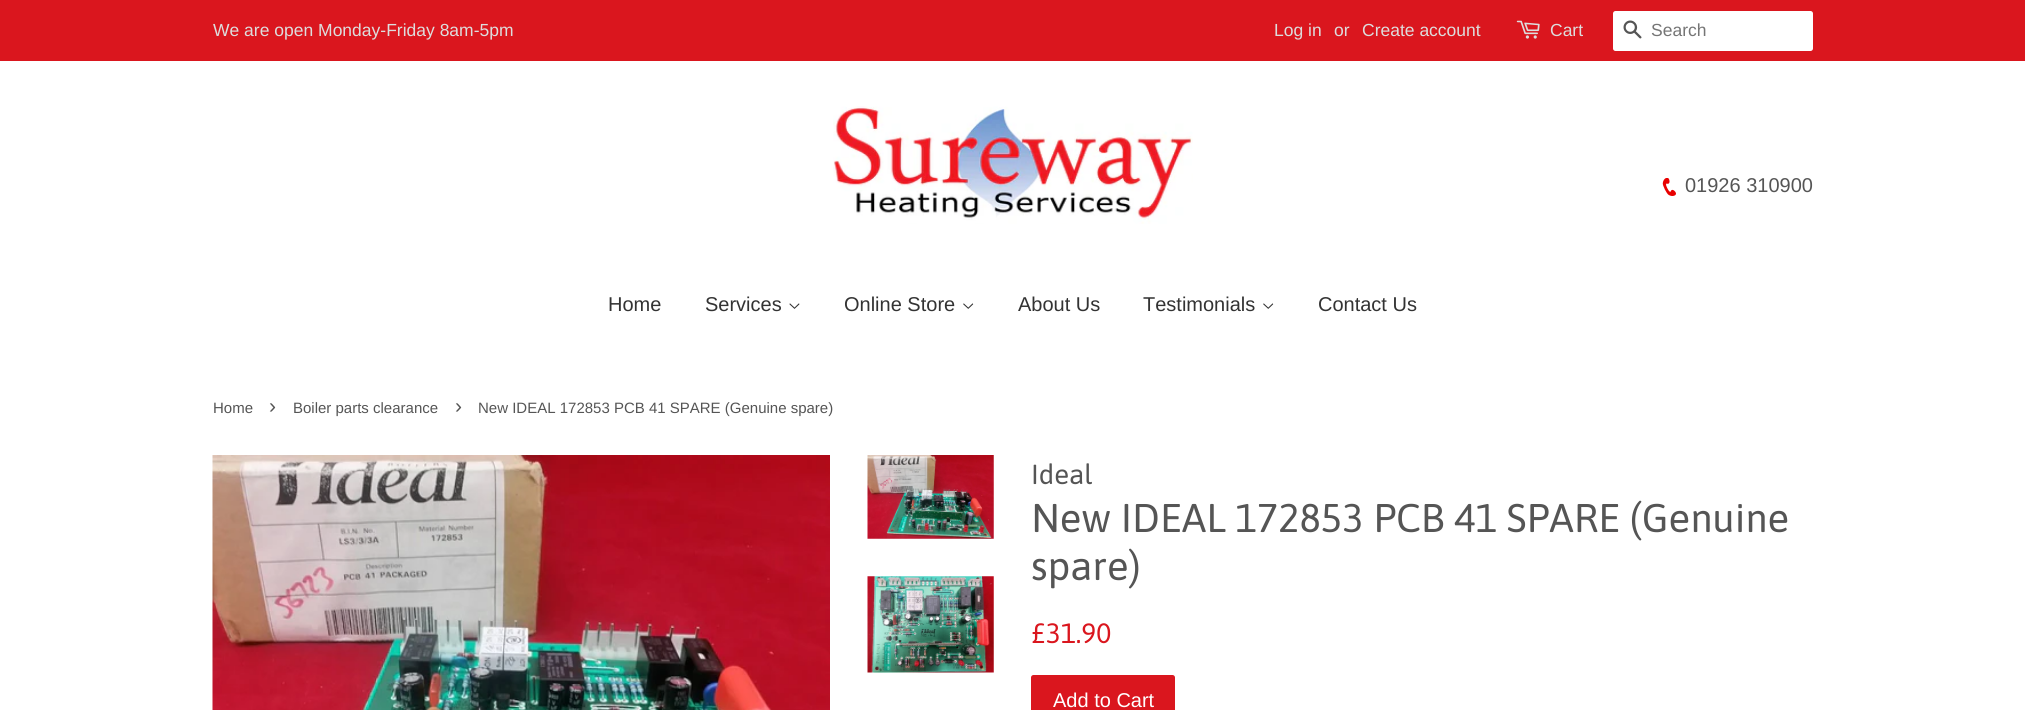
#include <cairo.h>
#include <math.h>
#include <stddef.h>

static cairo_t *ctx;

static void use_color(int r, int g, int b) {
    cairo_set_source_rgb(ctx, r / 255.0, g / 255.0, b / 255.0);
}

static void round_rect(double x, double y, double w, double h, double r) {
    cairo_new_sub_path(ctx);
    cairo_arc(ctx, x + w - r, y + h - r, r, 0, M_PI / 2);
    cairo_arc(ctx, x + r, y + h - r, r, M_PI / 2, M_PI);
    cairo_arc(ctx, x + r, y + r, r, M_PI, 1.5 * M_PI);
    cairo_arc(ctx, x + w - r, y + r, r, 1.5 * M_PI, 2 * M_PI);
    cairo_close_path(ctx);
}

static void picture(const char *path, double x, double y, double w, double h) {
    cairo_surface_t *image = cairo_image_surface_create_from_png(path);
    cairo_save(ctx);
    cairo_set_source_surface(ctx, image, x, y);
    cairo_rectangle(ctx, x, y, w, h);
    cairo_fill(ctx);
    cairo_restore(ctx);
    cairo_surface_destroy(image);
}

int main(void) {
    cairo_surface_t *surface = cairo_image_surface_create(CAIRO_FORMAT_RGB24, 2025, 710);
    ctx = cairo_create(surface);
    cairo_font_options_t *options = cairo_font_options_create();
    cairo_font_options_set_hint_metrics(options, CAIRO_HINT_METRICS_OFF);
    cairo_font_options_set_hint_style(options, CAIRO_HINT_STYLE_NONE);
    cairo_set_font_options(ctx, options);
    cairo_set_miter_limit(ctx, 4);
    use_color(255, 255, 255);
    cairo_paint(ctx);
    use_color(218, 22, 30);
    cairo_rectangle(ctx, 0, 0, 2025, 61);
    cairo_fill(ctx);
    cairo_select_font_face(ctx, "Liberation Sans", CAIRO_FONT_SLANT_NORMAL, CAIRO_FONT_WEIGHT_NORMAL);
    cairo_set_font_size(ctx, 17.5);
    use_color(221, 221, 221);
    cairo_move_to(ctx, 213, 36);
    cairo_show_text(ctx, "We are open Monday-Friday 8am-5pm");
    cairo_move_to(ctx, 1274, 36);
    cairo_show_text(ctx, "Log in");
    cairo_move_to(ctx, 1334, 36);
    cairo_show_text(ctx, "or");
    cairo_move_to(ctx, 1362, 36);
    cairo_show_text(ctx, "Create account");
    picture("img1.png", 1516, 20, 24, 19);
    cairo_move_to(ctx, 1550, 36);
    cairo_show_text(ctx, "Cart");
    use_color(255, 255, 255);
    round_rect(1613, 11, 200, 40, 2.5);
    cairo_fill(ctx);
    picture("img2.png", 1623, 20, 19, 19);
    use_color(117, 117, 117);
    cairo_move_to(ctx, 1651, 36);
    cairo_show_text(ctx, "Search");
    picture("img3.png", 833, 106, 360, 118);
    picture("img4.png", 1662, 178, 14, 18);
    cairo_set_font_size(ctx, 20);
    use_color(85, 85, 85);
    cairo_move_to(ctx, 1685, 192);
    cairo_show_text(ctx, "01926 310900");
    use_color(51, 51, 51);
    cairo_move_to(ctx, 608, 311);
    cairo_show_text(ctx, "Home");
    cairo_move_to(ctx, 705, 311);
    cairo_show_text(ctx, "Services");
    picture("img5.png", 789, 303, 11, 6);
    cairo_move_to(ctx, 844, 311);
    cairo_show_text(ctx, "Online Store");
    picture("img6.png", 963, 303, 11, 6);
    cairo_move_to(ctx, 1018, 311);
    cairo_show_text(ctx, "About Us");
    cairo_move_to(ctx, 1143, 311);
    cairo_show_text(ctx, "Testimonials");
    picture("img6.png", 1263, 303, 11, 6);
    cairo_move_to(ctx, 1318, 311);
    cairo_show_text(ctx, "Contact Us");
    cairo_set_font_size(ctx, 15);
    use_color(85, 85, 85);
    cairo_move_to(ctx, 213, 413);
    cairo_show_text(ctx, "Home");
    cairo_set_font_size(ctx, 21);
    cairo_move_to(ctx, 269, 413);
    cairo_show_text(ctx, "›");
    cairo_set_font_size(ctx, 15);
    cairo_move_to(ctx, 293, 413);
    cairo_show_text(ctx, "Boiler parts clearance");
    cairo_set_font_size(ctx, 21);
    cairo_move_to(ctx, 455, 413);
    cairo_show_text(ctx, "›");
    cairo_set_font_size(ctx, 15);
    cairo_move_to(ctx, 478, 413);
    cairo_show_text(ctx, "New IDEAL 172853 PCB 41 SPARE (Genuine spare)");
    picture("img7.png", 212, 455, 618, 255);
    picture("img8.png", 867, 455, 127, 84);
    picture("img9.png", 867, 576, 127, 97);
    cairo_select_font_face(ctx, "Asap", CAIRO_FONT_SLANT_NORMAL, CAIRO_FONT_WEIGHT_NORMAL);
    cairo_set_font_size(ctx, 27.5);
    cairo_move_to(ctx, 1031, 484);
    cairo_show_text(ctx, "Ideal");
    cairo_set_font_size(ctx, 40);
    cairo_move_to(ctx, 1031, 532);
    cairo_show_text(ctx, "New IDEAL 172853 PCB 41 SPARE (Genuine");
    cairo_move_to(ctx, 1031, 580);
    cairo_show_text(ctx, "spare)");
    cairo_set_font_size(ctx, 28);
    use_color(218, 22, 30);
    cairo_move_to(ctx, 1031, 643);
    cairo_show_text(ctx, "£31.90");
    round_rect(1031, 675, 144, 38, 2.5);
    cairo_fill(ctx);
    cairo_select_font_face(ctx, "Liberation Sans", CAIRO_FONT_SLANT_NORMAL, CAIRO_FONT_WEIGHT_NORMAL);
    cairo_set_font_size(ctx, 20);
    use_color(255, 255, 255);
    cairo_move_to(ctx, 1053, 707);
    cairo_show_text(ctx, "Add to Cart");
    cairo_surface_write_to_png(surface, "result.png");
    cairo_font_options_destroy(options);
    cairo_destroy(ctx);
    cairo_surface_destroy(surface);
    return 0;
}
